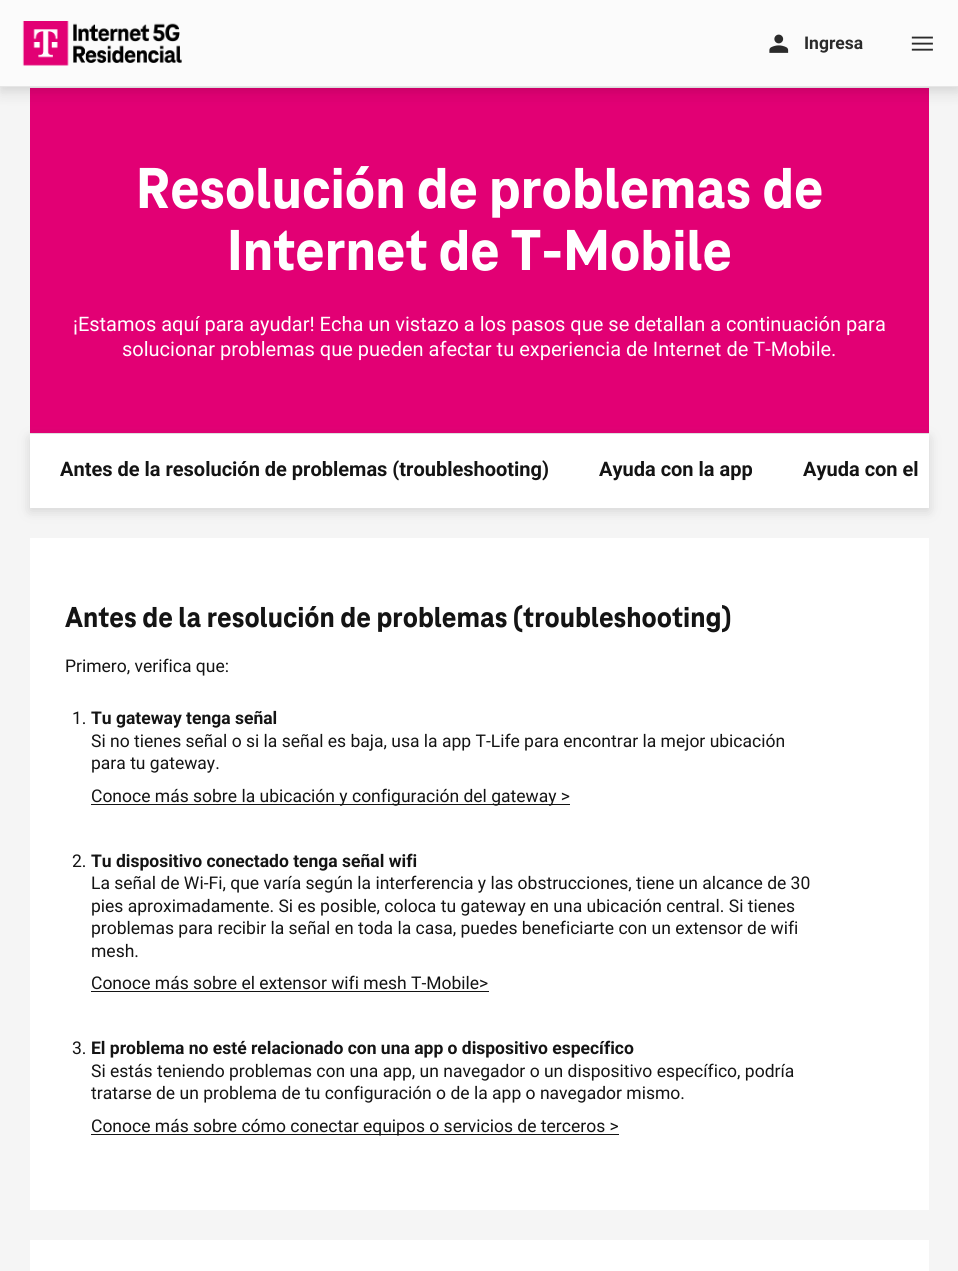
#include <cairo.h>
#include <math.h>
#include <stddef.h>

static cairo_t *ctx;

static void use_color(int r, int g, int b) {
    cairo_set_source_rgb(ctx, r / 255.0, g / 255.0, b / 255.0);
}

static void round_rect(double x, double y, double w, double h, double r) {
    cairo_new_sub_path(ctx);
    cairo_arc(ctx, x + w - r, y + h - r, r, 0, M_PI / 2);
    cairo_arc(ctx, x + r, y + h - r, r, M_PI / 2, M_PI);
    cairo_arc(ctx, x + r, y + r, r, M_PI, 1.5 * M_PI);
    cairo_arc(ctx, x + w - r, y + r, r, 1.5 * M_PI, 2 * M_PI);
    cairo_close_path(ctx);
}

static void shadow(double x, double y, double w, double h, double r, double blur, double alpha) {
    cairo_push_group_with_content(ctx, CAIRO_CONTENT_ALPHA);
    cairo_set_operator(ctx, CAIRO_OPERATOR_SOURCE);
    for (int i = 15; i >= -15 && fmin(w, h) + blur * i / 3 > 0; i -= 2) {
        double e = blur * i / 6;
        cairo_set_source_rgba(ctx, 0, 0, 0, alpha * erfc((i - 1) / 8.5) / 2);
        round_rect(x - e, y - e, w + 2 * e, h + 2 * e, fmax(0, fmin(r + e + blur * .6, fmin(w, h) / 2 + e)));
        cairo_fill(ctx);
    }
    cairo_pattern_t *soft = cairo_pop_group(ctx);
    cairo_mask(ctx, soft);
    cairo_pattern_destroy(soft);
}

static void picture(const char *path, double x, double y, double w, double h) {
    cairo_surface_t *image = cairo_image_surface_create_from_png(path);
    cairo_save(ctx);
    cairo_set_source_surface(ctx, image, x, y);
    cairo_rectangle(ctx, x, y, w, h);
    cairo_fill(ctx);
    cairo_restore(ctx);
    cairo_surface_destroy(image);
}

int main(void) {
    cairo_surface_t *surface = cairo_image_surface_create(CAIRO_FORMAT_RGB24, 958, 1271);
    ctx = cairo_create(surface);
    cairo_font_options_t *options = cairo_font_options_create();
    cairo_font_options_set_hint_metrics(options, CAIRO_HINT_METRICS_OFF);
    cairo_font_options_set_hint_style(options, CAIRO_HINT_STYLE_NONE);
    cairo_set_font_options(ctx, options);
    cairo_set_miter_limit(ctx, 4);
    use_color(245, 245, 245);
    cairo_paint(ctx);
    use_color(226, 0, 116);
    cairo_rectangle(ctx, 30, 88, 899, 345);
    cairo_fill(ctx);
    use_color(0, 0, 0);
    shadow(0, 1, 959, 88, 0, 11, 0.05);
    shadow(0, 8, 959, 87, 0, 6, 0.05);
    shadow(1, 5, 957, 85, 0, 3, 0.05);
    use_color(230, 230, 230);
    cairo_rectangle(ctx, 0, 86, 958, 1);
    cairo_fill(ctx);
    use_color(251, 251, 251);
    cairo_rectangle(ctx, 0, 0, 958, 86);
    cairo_fill(ctx);
    picture("img1.png", 22, 21, 160, 45);
    picture("img2.png", 769, 34, 20, 19);
    cairo_select_font_face(ctx, "Roboto", CAIRO_FONT_SLANT_NORMAL, CAIRO_FONT_WEIGHT_BOLD);
    cairo_set_font_size(ctx, 17.5);
    use_color(43, 43, 43);
    cairo_move_to(ctx, 804, 49);
    cairo_show_text(ctx, "Ingresa");
    picture("img3.png", 911, 36, 22, 15);
    cairo_select_font_face(ctx, "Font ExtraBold", CAIRO_FONT_SLANT_NORMAL, CAIRO_FONT_WEIGHT_NORMAL);
    cairo_set_font_size(ctx, 60);
    use_color(255, 255, 255);
    cairo_move_to(ctx, 136, 208);
    cairo_show_text(ctx, "Resolución de problemas de");
    cairo_move_to(ctx, 227, 270);
    cairo_show_text(ctx, "Internet de T-Mobile");
    cairo_select_font_face(ctx, "Roboto", CAIRO_FONT_SLANT_NORMAL, CAIRO_FONT_WEIGHT_NORMAL);
    cairo_set_font_size(ctx, 20);
    cairo_move_to(ctx, 73, 331);
    cairo_show_text(ctx, "¡Estamos aquí para ayudar! Echa un vistazo a los pasos que se detallan a continuación para");
    cairo_move_to(ctx, 122, 356);
    cairo_show_text(ctx, "solucionar problemas que pueden afectar tu experiencia de Internet de T-Mobile.");
    use_color(230, 230, 230);
    cairo_rectangle(ctx, 30, 433, 899, 1);
    cairo_fill(ctx);
    use_color(65, 65, 65);
    shadow(30, 438, 899, 73, 0, 6, 0.19);
    use_color(255, 255, 255);
    cairo_rectangle(ctx, 30, 434, 899, 74);
    cairo_fill(ctx);
    cairo_select_font_face(ctx, "Roboto", CAIRO_FONT_SLANT_NORMAL, CAIRO_FONT_WEIGHT_BOLD);
    use_color(20, 20, 20);
    cairo_move_to(ctx, 60, 476);
    cairo_show_text(ctx, "Antes de la resolución de problemas (troubleshooting)");
    cairo_move_to(ctx, 599, 476);
    cairo_show_text(ctx, "Ayuda con la app");
    cairo_move_to(ctx, 803, 476);
    cairo_show_text(ctx, "Ayuda con el");
    use_color(255, 255, 255);
    cairo_rectangle(ctx, 30, 538, 899, 672);
    cairo_fill(ctx);
    cairo_select_font_face(ctx, "Font ExtraBold", CAIRO_FONT_SLANT_NORMAL, CAIRO_FONT_WEIGHT_NORMAL);
    cairo_set_font_size(ctx, 30);
    use_color(20, 20, 20);
    cairo_move_to(ctx, 65, 627);
    cairo_show_text(ctx, "Antes de la resolución de problemas (troubleshooting)");
    cairo_select_font_face(ctx, "Roboto", CAIRO_FONT_SLANT_NORMAL, CAIRO_FONT_WEIGHT_NORMAL);
    cairo_set_font_size(ctx, 17.5);
    cairo_move_to(ctx, 65, 672);
    cairo_show_text(ctx, "Primero, verifica que:");
    cairo_move_to(ctx, 72, 724);
    cairo_show_text(ctx, "1.");
    cairo_select_font_face(ctx, "Roboto", CAIRO_FONT_SLANT_NORMAL, CAIRO_FONT_WEIGHT_BOLD);
    cairo_move_to(ctx, 91, 724);
    cairo_show_text(ctx, "Tu gateway tenga señal");
    cairo_select_font_face(ctx, "Roboto", CAIRO_FONT_SLANT_NORMAL, CAIRO_FONT_WEIGHT_NORMAL);
    cairo_move_to(ctx, 91, 747);
    cairo_show_text(ctx, "Si no tienes señal o si la señal es baja, usa la app T-Life para encontrar la mejor ubicación");
    cairo_move_to(ctx, 91, 769);
    cairo_show_text(ctx, "para tu gateway.");
    cairo_rectangle(ctx, 91, 804, 479, 1);
    cairo_fill(ctx);
    cairo_move_to(ctx, 91, 802);
    cairo_show_text(ctx, "Conoce más sobre la ubicación y configuración del gateway >");
    cairo_move_to(ctx, 72, 867);
    cairo_show_text(ctx, "2.");
    cairo_select_font_face(ctx, "Roboto", CAIRO_FONT_SLANT_NORMAL, CAIRO_FONT_WEIGHT_BOLD);
    cairo_move_to(ctx, 91, 867);
    cairo_show_text(ctx, "Tu dispositivo conectado tenga señal wifi");
    cairo_select_font_face(ctx, "Roboto", CAIRO_FONT_SLANT_NORMAL, CAIRO_FONT_WEIGHT_NORMAL);
    cairo_move_to(ctx, 91, 889);
    cairo_show_text(ctx, "La señal de Wi-Fi, que varía según la interferencia y las obstrucciones, tiene un alcance de 30");
    cairo_move_to(ctx, 91, 912);
    cairo_show_text(ctx, "pies aproximadamente. Si es posible, coloca tu gateway en una ubicación central. Si tienes");
    cairo_move_to(ctx, 91, 934);
    cairo_show_text(ctx, "problemas para recibir la señal en toda la casa, puedes beneficiarte con un extensor de wifi");
    cairo_move_to(ctx, 91, 957);
    cairo_show_text(ctx, "mesh.");
    cairo_move_to(ctx, 91, 989);
    cairo_show_text(ctx, "Conoce más sobre el extensor wifi mesh T-Mobile>");
    cairo_rectangle(ctx, 91, 991, 398, 1);
    cairo_fill(ctx);
    cairo_move_to(ctx, 72, 1054);
    cairo_show_text(ctx, "3.");
    cairo_select_font_face(ctx, "Roboto", CAIRO_FONT_SLANT_NORMAL, CAIRO_FONT_WEIGHT_BOLD);
    cairo_move_to(ctx, 91, 1054);
    cairo_show_text(ctx, "El problema no esté relacionado con una app o dispositivo específico");
    cairo_select_font_face(ctx, "Roboto", CAIRO_FONT_SLANT_NORMAL, CAIRO_FONT_WEIGHT_NORMAL);
    cairo_move_to(ctx, 91, 1077);
    cairo_show_text(ctx, "Si estás teniendo problemas con una app, un navegador o un dispositivo específico, podría");
    cairo_move_to(ctx, 91, 1099);
    cairo_show_text(ctx, "tratarse de un problema de tu configuración o de la app o navegador mismo.");
    cairo_rectangle(ctx, 91, 1134, 528, 1);
    cairo_fill(ctx);
    cairo_move_to(ctx, 91, 1132);
    cairo_show_text(ctx, "Conoce más sobre cómo conectar equipos o servicios de terceros >");
    use_color(255, 255, 255);
    cairo_rectangle(ctx, 30, 1240, 899, 31);
    cairo_fill(ctx);
    cairo_surface_write_to_png(surface, "result.png");
    cairo_font_options_destroy(options);
    cairo_destroy(ctx);
    cairo_surface_destroy(surface);
    return 0;
}
